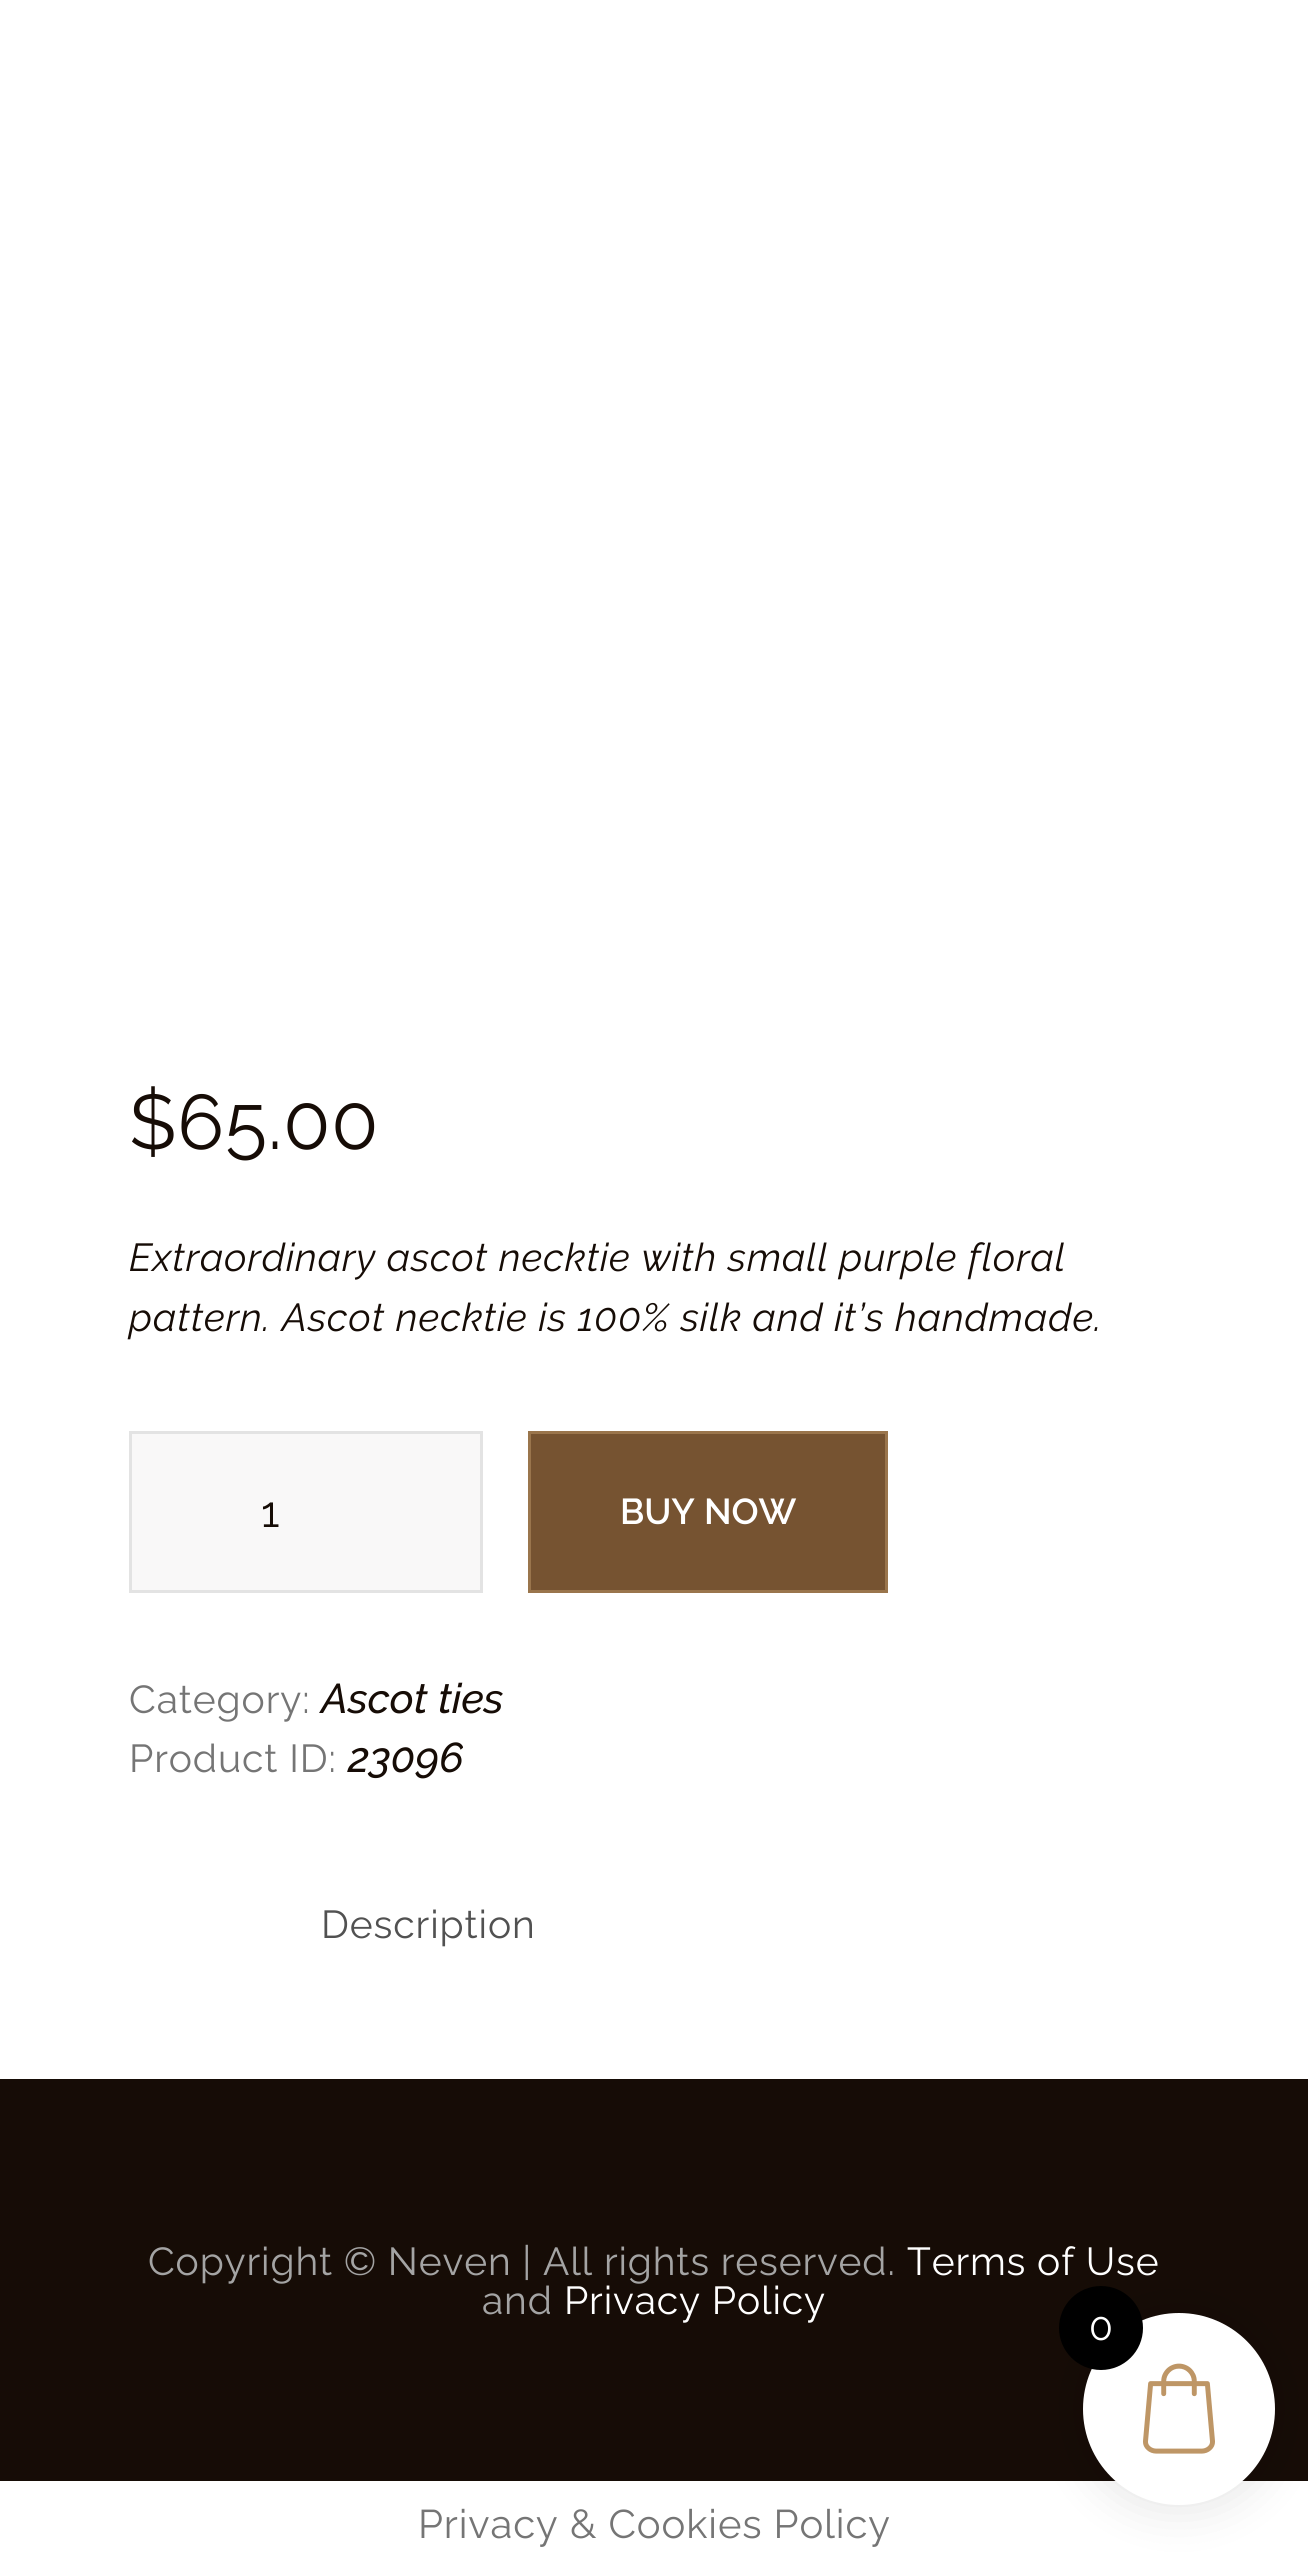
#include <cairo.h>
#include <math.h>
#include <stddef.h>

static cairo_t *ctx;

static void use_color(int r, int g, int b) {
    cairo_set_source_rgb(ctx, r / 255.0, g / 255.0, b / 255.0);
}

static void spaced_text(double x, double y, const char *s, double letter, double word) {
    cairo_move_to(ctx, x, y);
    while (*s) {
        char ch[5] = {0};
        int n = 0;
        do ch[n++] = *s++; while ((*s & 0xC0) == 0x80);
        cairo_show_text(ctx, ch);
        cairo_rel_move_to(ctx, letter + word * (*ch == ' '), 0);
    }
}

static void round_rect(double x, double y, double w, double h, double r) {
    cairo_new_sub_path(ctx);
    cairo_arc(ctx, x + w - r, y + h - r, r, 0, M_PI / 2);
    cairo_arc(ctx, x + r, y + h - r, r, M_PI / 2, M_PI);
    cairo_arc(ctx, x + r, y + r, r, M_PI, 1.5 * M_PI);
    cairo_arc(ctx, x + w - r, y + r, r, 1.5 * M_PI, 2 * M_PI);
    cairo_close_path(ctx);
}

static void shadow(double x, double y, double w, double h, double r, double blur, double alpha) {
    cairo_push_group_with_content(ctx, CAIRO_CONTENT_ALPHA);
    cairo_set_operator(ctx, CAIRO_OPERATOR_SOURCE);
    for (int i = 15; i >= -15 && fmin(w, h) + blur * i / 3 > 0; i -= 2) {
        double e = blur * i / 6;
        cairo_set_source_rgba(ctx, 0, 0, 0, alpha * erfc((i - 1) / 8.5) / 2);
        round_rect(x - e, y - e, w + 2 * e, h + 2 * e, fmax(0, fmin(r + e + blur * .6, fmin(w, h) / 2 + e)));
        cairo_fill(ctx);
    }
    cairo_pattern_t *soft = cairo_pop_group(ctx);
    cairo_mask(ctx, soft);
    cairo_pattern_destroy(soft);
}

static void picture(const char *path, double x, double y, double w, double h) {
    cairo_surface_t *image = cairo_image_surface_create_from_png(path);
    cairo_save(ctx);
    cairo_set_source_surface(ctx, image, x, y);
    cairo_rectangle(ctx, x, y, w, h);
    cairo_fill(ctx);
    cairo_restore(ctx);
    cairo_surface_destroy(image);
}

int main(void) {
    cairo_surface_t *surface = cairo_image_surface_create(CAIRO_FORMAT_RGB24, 1308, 2570);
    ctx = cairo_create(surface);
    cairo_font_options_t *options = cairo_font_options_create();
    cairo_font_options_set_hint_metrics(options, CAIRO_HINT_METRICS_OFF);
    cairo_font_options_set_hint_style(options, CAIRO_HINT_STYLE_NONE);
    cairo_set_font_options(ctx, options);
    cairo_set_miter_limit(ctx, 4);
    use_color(255, 255, 255);
    cairo_paint(ctx);
    cairo_select_font_face(ctx, "Raleway", CAIRO_FONT_SLANT_NORMAL, CAIRO_FONT_WEIGHT_NORMAL);
    cairo_set_font_size(ctx, 77);
    use_color(22, 12, 6);
    spaced_text(129, 1149, "$65.00", 0.9, 0);
    cairo_select_font_face(ctx, "Raleway", CAIRO_FONT_SLANT_ITALIC, CAIRO_FONT_WEIGHT_NORMAL);
    cairo_set_font_size(ctx, 39);
    spaced_text(129, 1271, "Extraordinary ascot necktie with small purple floral", 0.9, 0);
    spaced_text(129, 1331, "pattern. Ascot necktie is 100% silk and it’s handmade.", 0.9, 0);
    use_color(249, 248, 248);
    cairo_rectangle(ctx, 130.5, 1432.5, 351, 159);
    cairo_fill_preserve(ctx);
    use_color(227, 227, 227);
    cairo_set_line_width(ctx, 3);
    cairo_stroke(ctx);
    cairo_select_font_face(ctx, "Raleway", CAIRO_FONT_SLANT_NORMAL, CAIRO_FONT_WEIGHT_NORMAL);
    cairo_set_font_size(ctx, 43);
    use_color(22, 12, 6);
    cairo_move_to(ctx, 261, 1527);
    cairo_show_text(ctx, "1");
    use_color(118, 83, 49);
    cairo_rectangle(ctx, 529.5, 1432.5, 357, 159);
    cairo_fill_preserve(ctx);
    use_color(154, 117, 76);
    cairo_stroke(ctx);
    cairo_select_font_face(ctx, "Raleway SemiBold", CAIRO_FONT_SLANT_NORMAL, CAIRO_FONT_WEIGHT_NORMAL);
    cairo_set_font_size(ctx, 36);
    use_color(255, 255, 255);
    cairo_move_to(ctx, 620, 1524);
    cairo_show_text(ctx, "BUY NOW");
    cairo_select_font_face(ctx, "Raleway", CAIRO_FONT_SLANT_NORMAL, CAIRO_FONT_WEIGHT_NORMAL);
    cairo_set_font_size(ctx, 39);
    use_color(117, 117, 117);
    spaced_text(129, 1713, "Category:", 0.9, 0);
    cairo_select_font_face(ctx, "Raleway Medium", CAIRO_FONT_SLANT_ITALIC, CAIRO_FONT_WEIGHT_NORMAL);
    cairo_set_font_size(ctx, 41.5);
    use_color(22, 12, 6);
    cairo_move_to(ctx, 321, 1713);
    cairo_show_text(ctx, "Ascot ties");
    cairo_select_font_face(ctx, "Raleway", CAIRO_FONT_SLANT_NORMAL, CAIRO_FONT_WEIGHT_NORMAL);
    cairo_set_font_size(ctx, 39);
    use_color(117, 117, 117);
    spaced_text(129, 1772, "Product ID:", 0.9, 0);
    cairo_select_font_face(ctx, "Raleway Medium", CAIRO_FONT_SLANT_ITALIC, CAIRO_FONT_WEIGHT_NORMAL);
    cairo_set_font_size(ctx, 41.5);
    use_color(22, 12, 6);
    cairo_move_to(ctx, 348, 1772);
    cairo_show_text(ctx, "23096");
    cairo_select_font_face(ctx, "Raleway", CAIRO_FONT_SLANT_NORMAL, CAIRO_FONT_WEIGHT_NORMAL);
    cairo_set_font_size(ctx, 39);
    use_color(81, 81, 81);
    spaced_text(321, 1938, "Description", 0.9, 0);
    use_color(22, 12, 6);
    cairo_rectangle(ctx, 0, 2079, 1308, 402);
    cairo_fill(ctx);
    use_color(164, 164, 164);
    spaced_text(148, 2275, "Copyright © Neven | All rights reserved.", 0.85, 0);
    use_color(255, 255, 255);
    spaced_text(907, 2275, "Terms of Use", 0.85, 0);
    use_color(164, 164, 164);
    spaced_text(482, 2314, "and", 0.85, 0);
    use_color(255, 255, 255);
    spaced_text(564, 2314, "Privacy Policy", 0.85, 0);
    use_color(0, 0, 0);
    shadow(1077, 2307, 204, 204, 102, 22.5, 0.1);
    use_color(255, 255, 255);
    cairo_arc(ctx, 1179, 2409, 96, 0, 2 * M_PI);
    cairo_fill(ctx);
    use_color(0, 0, 0);
    cairo_arc(ctx, 1101, 2328, 42, 0, 2 * M_PI);
    cairo_fill(ctx);
    use_color(255, 255, 255);
    spaced_text(1089, 2340, "0", 0.9, 0);
    picture("img1.png", 1143, 2363, 72, 91);
    cairo_set_font_size(ctx, 40);
    use_color(117, 117, 117);
    spaced_text(418, 2538, "Privacy & Cookies Policy", 0.9, 0);
    cairo_surface_write_to_png(surface, "result.png");
    cairo_font_options_destroy(options);
    cairo_destroy(ctx);
    cairo_surface_destroy(surface);
    return 0;
}
